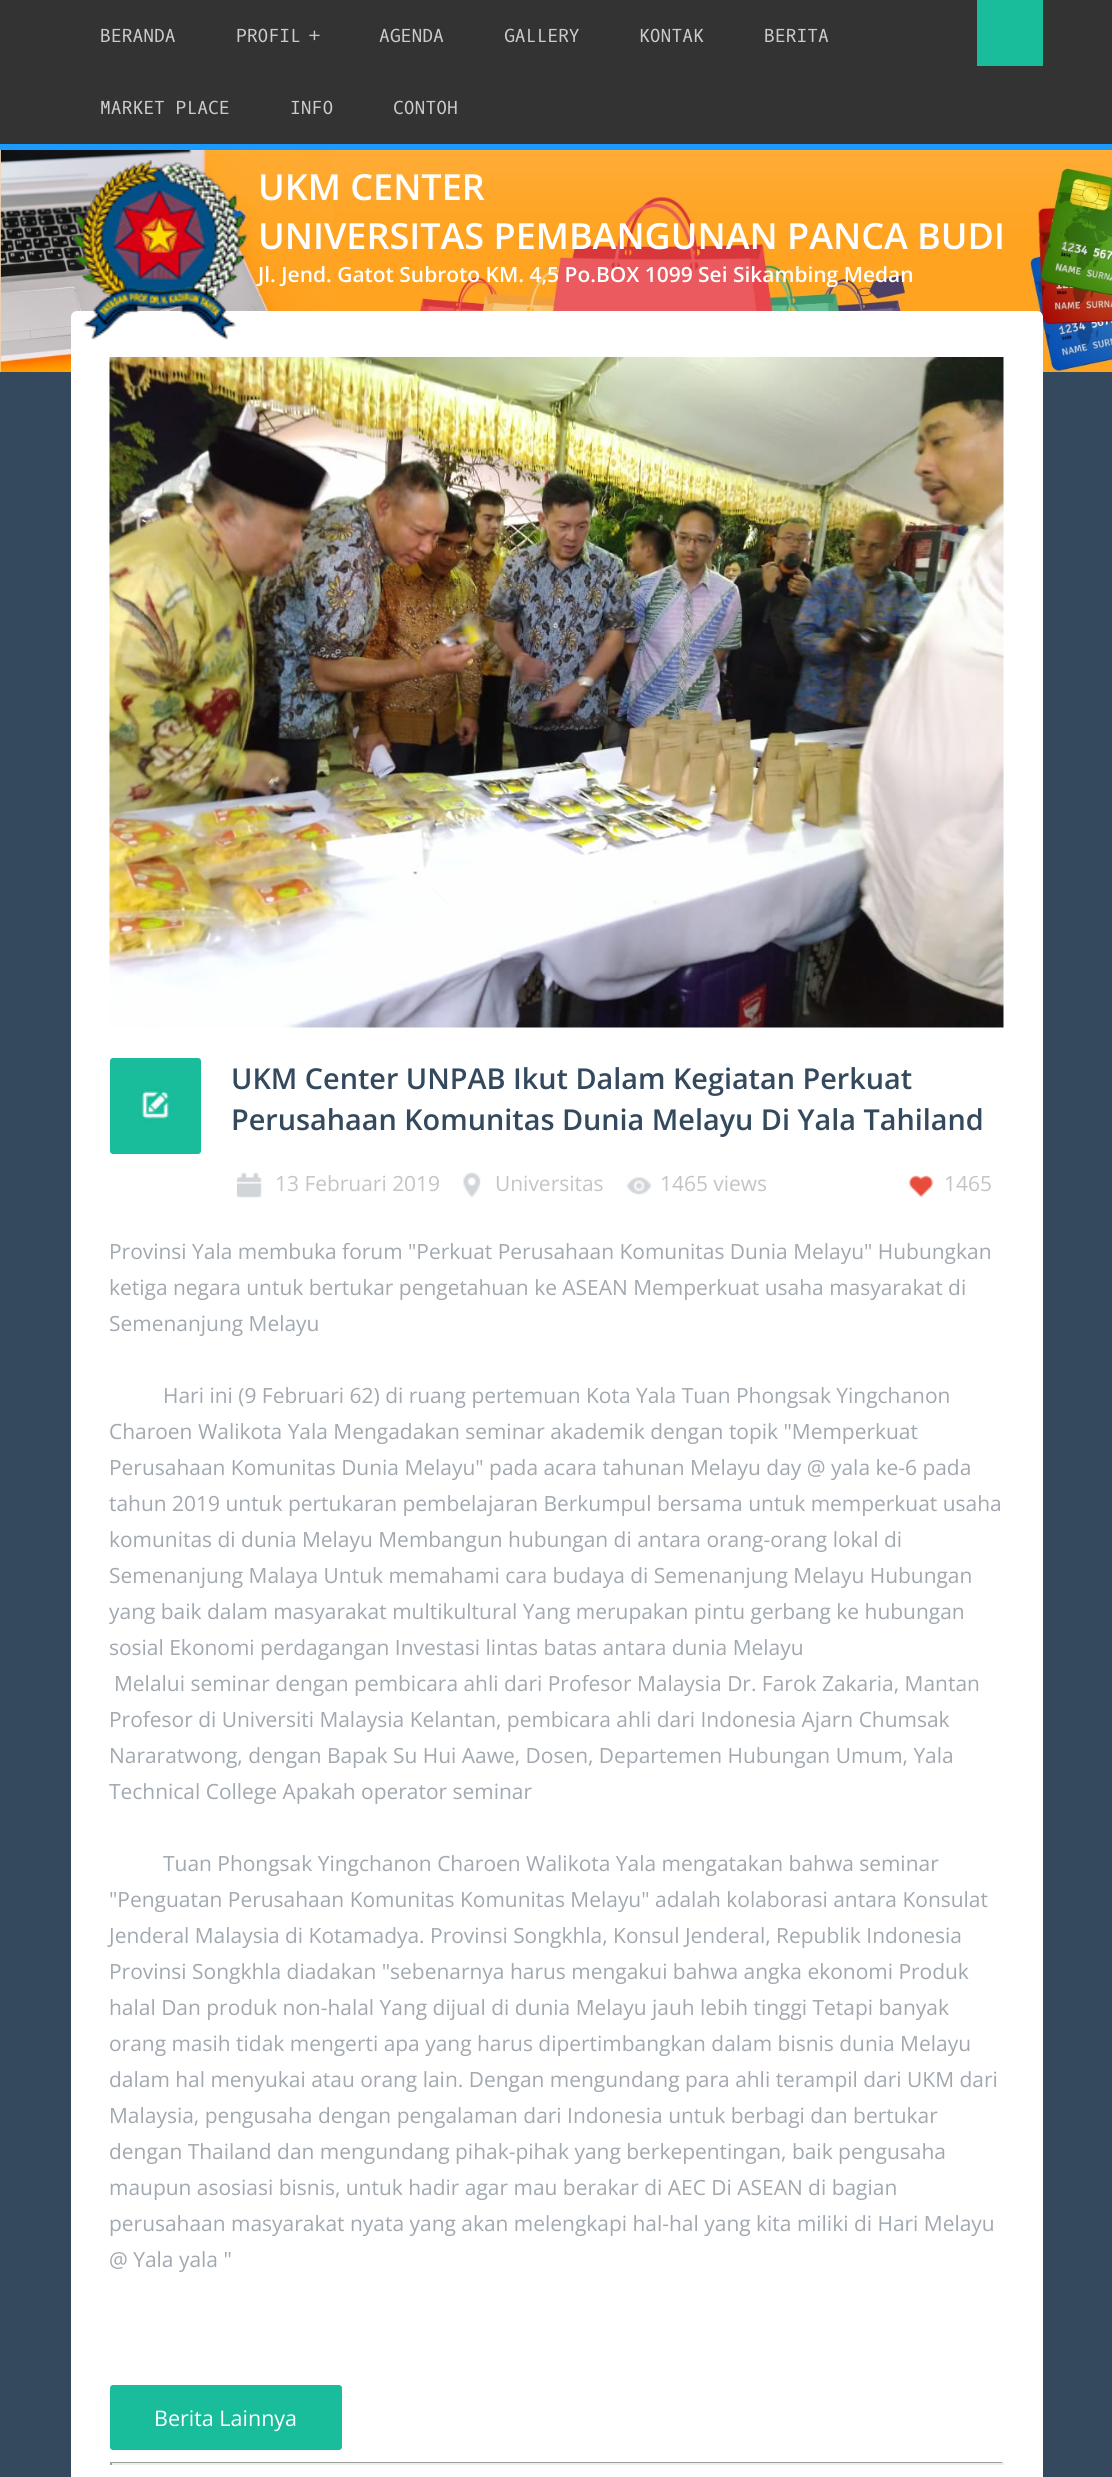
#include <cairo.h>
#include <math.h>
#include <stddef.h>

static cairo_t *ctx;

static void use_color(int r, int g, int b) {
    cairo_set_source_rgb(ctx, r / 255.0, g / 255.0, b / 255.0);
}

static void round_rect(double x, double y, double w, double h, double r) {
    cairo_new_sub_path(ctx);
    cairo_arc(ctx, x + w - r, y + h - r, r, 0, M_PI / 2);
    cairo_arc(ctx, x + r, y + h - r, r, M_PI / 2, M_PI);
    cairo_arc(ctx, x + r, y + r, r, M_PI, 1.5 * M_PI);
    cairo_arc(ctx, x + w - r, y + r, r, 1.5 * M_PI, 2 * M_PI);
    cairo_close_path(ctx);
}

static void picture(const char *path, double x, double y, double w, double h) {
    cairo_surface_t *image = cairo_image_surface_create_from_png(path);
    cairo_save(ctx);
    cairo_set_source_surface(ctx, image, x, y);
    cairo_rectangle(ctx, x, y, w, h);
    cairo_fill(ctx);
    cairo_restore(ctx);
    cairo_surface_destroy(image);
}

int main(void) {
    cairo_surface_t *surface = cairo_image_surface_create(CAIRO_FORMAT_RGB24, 1112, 2477);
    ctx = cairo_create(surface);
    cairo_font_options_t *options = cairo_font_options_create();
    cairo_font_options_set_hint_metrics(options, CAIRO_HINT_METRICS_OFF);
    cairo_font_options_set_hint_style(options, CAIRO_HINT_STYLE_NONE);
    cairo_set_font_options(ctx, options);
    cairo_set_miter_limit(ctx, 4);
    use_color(51, 51, 51);
    cairo_paint(ctx);
    use_color(27, 155, 255);
    cairo_rectangle(ctx, 0, 144, 1112, 6);
    cairo_fill(ctx);
    cairo_select_font_face(ctx, "Oxygen Mono", CAIRO_FONT_SLANT_NORMAL, CAIRO_FONT_WEIGHT_NORMAL);
    cairo_set_font_size(ctx, 18);
    use_color(203, 203, 203);
    cairo_move_to(ctx, 100, 42);
    cairo_show_text(ctx, "BERANDA");
    cairo_move_to(ctx, 236, 42);
    cairo_show_text(ctx, "PROFIL");
    cairo_move_to(ctx, 308, 42);
    cairo_show_text(ctx, "+");
    cairo_move_to(ctx, 379, 42);
    cairo_show_text(ctx, "AGENDA");
    cairo_move_to(ctx, 504, 42);
    cairo_show_text(ctx, "GALLERY");
    cairo_move_to(ctx, 639, 42);
    cairo_show_text(ctx, "KONTAK");
    cairo_move_to(ctx, 764, 42);
    cairo_show_text(ctx, "BERITA");
    cairo_move_to(ctx, 100, 114);
    cairo_show_text(ctx, "MARKET PLACE");
    cairo_move_to(ctx, 290, 114);
    cairo_show_text(ctx, "INFO");
    cairo_move_to(ctx, 393, 114);
    cairo_show_text(ctx, "CONTOH");
    use_color(25, 189, 155);
    cairo_rectangle(ctx, 977, 0, 66, 66);
    cairo_fill(ctx);
    picture("img1.png", 0, 150, 1112, 222);
    use_color(52, 73, 94);
    cairo_rectangle(ctx, 0, 372, 1112, 2105);
    cairo_fill(ctx);
    use_color(255, 255, 255);
    round_rect(71, 311, 972, 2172, 6);
    cairo_fill(ctx);
    picture("img2.png", 72, 160, 176, 180);
    cairo_select_font_face(ctx, "Open Sans SemiBold", CAIRO_FONT_SLANT_NORMAL, CAIRO_FONT_WEIGHT_NORMAL);
    cairo_set_font_size(ctx, 36);
    cairo_move_to(ctx, 258, 200);
    cairo_show_text(ctx, "UKM CENTER");
    cairo_move_to(ctx, 258, 249);
    cairo_show_text(ctx, "UNIVERSITAS PEMBANGUNAN PANCA BUDI");
    cairo_set_font_size(ctx, 20.95);
    cairo_move_to(ctx, 258, 282);
    cairo_show_text(ctx, "Jl. Jend. Gatot Subroto KM. 4,5 Po.BOX 1099 Sei Sikambing Medan");
    picture("img3.png", 109, 357, 895, 671);
    use_color(25, 189, 155);
    round_rect(110, 1058, 91, 96, 3);
    cairo_fill(ctx);
    picture("img4.png", 139, 1087, 32, 37);
    cairo_set_font_size(ctx, 28.8);
    use_color(52, 73, 94);
    cairo_move_to(ctx, 231, 1089);
    cairo_show_text(ctx, "UKM Center UNPAB Ikut Dalam Kegiatan Perkuat");
    cairo_move_to(ctx, 231, 1130);
    cairo_show_text(ctx, "Perusahaan Komunitas Dunia Melayu Di Yala Tahiland");
    picture("img5.png", 237, 1172, 25, 26);
    cairo_select_font_face(ctx, "Open Sans", CAIRO_FONT_SLANT_NORMAL, CAIRO_FONT_WEIGHT_NORMAL);
    cairo_set_font_size(ctx, 20.95);
    use_color(196, 196, 196);
    cairo_move_to(ctx, 275, 1191);
    cairo_show_text(ctx, "13 Februari 2019");
    picture("img6.png", 463, 1172, 18, 26);
    cairo_move_to(ctx, 495, 1191);
    cairo_show_text(ctx, "Universitas");
    picture("img7.png", 626, 1177, 25, 18);
    cairo_move_to(ctx, 660, 1191);
    cairo_show_text(ctx, "1465 views");
    picture("img8.png", 908, 1175, 26, 23);
    cairo_move_to(ctx, 944, 1191);
    cairo_show_text(ctx, "1465");
    use_color(161, 168, 175);
    cairo_move_to(ctx, 109, 1259);
    cairo_show_text(ctx, "Provinsi Yala membuka forum \"Perkuat Perusahaan Komunitas Dunia Melayu\" Hubungkan");
    cairo_move_to(ctx, 109, 1295);
    cairo_show_text(ctx, "ketiga negara untuk bertukar pengetahuan ke ASEAN Memperkuat usaha masyarakat di");
    cairo_move_to(ctx, 109, 1331);
    cairo_show_text(ctx, "Semenanjung Melayu");
    cairo_move_to(ctx, 163, 1403);
    cairo_show_text(ctx, "Hari ini (9 Februari 62) di ruang pertemuan Kota Yala Tuan Phongsak Yingchanon");
    cairo_move_to(ctx, 109, 1439);
    cairo_show_text(ctx, "Charoen Walikota Yala Mengadakan seminar akademik dengan topik \"Memperkuat");
    cairo_move_to(ctx, 109, 1475);
    cairo_show_text(ctx, "Perusahaan Komunitas Dunia Melayu\" pada acara tahunan Melayu day @ yala ke-6 pada");
    cairo_move_to(ctx, 109, 1511);
    cairo_show_text(ctx, "tahun 2019 untuk pertukaran pembelajaran Berkumpul bersama untuk memperkuat usaha");
    cairo_move_to(ctx, 109, 1547);
    cairo_show_text(ctx, "komunitas di dunia Melayu Membangun hubungan di antara orang-orang lokal di");
    cairo_move_to(ctx, 109, 1583);
    cairo_show_text(ctx, "Semenanjung Malaya Untuk memahami cara budaya di Semenanjung Melayu Hubungan");
    cairo_move_to(ctx, 109, 1619);
    cairo_show_text(ctx, "yang baik dalam masyarakat multikultural Yang merupakan pintu gerbang ke hubungan");
    cairo_move_to(ctx, 109, 1655);
    cairo_show_text(ctx, "sosial Ekonomi perdagangan Investasi lintas batas antara dunia Melayu");
    cairo_move_to(ctx, 114, 1691);
    cairo_show_text(ctx, "Melalui seminar dengan pembicara ahli dari Profesor Malaysia Dr. Farok Zakaria, Mantan");
    cairo_move_to(ctx, 109, 1727);
    cairo_show_text(ctx, "Profesor di Universiti Malaysia Kelantan, pembicara ahli dari Indonesia Ajarn Chumsak");
    cairo_move_to(ctx, 109, 1763);
    cairo_show_text(ctx, "Nararatwong, dengan Bapak Su Hui Aawe, Dosen, Departemen Hubungan Umum, Yala");
    cairo_move_to(ctx, 109, 1799);
    cairo_show_text(ctx, "Technical College Apakah operator seminar");
    cairo_move_to(ctx, 163, 1871);
    cairo_show_text(ctx, "Tuan Phongsak Yingchanon Charoen Walikota Yala mengatakan bahwa seminar");
    cairo_move_to(ctx, 109, 1907);
    cairo_show_text(ctx, "\"Penguatan Perusahaan Komunitas Komunitas Melayu\" adalah kolaborasi antara Konsulat");
    cairo_move_to(ctx, 109, 1943);
    cairo_show_text(ctx, "Jenderal Malaysia di Kotamadya. Provinsi Songkhla, Konsul Jenderal, Republik Indonesia");
    cairo_move_to(ctx, 109, 1979);
    cairo_show_text(ctx, "Provinsi Songkhla diadakan \"sebenarnya harus mengakui bahwa angka ekonomi Produk");
    cairo_move_to(ctx, 109, 2015);
    cairo_show_text(ctx, "halal Dan produk non-halal Yang dijual di dunia Melayu jauh lebih tinggi Tetapi banyak");
    cairo_move_to(ctx, 109, 2051);
    cairo_show_text(ctx, "orang masih tidak mengerti apa yang harus dipertimbangkan dalam bisnis dunia Melayu");
    cairo_move_to(ctx, 109, 2087);
    cairo_show_text(ctx, "dalam hal menyukai atau orang lain. Dengan mengundang para ahli terampil dari UKM dari");
    cairo_move_to(ctx, 109, 2123);
    cairo_show_text(ctx, "Malaysia, pengusaha dengan pengalaman dari Indonesia untuk berbagi dan bertukar");
    cairo_move_to(ctx, 109, 2159);
    cairo_show_text(ctx, "dengan Thailand dan mengundang pihak-pihak yang berkepentingan, baik pengusaha");
    cairo_move_to(ctx, 109, 2195);
    cairo_show_text(ctx, "maupun asosiasi bisnis, untuk hadir agar mau berakar di AEC Di ASEAN di bagian");
    cairo_move_to(ctx, 109, 2231);
    cairo_show_text(ctx, "perusahaan masyarakat nyata yang akan melengkapi hal-hal yang kita miliki di Hari Melayu");
    cairo_move_to(ctx, 109, 2267);
    cairo_show_text(ctx, "@ Yala yala \"");
    use_color(25, 189, 155);
    round_rect(110, 2385, 232, 65, 3);
    cairo_fill(ctx);
    cairo_set_font_size(ctx, 21.5);
    use_color(255, 255, 255);
    cairo_move_to(ctx, 154, 2426);
    cairo_show_text(ctx, "Berita Lainnya");
    use_color(159, 159, 159);
    cairo_rectangle(ctx, 110, 2462, 894, 1);
    cairo_fill(ctx);
    use_color(238, 238, 238);
    cairo_rectangle(ctx, 1002, 2462, 2, 3);
    cairo_fill(ctx);
    cairo_rectangle(ctx, 110, 2463, 894, 2);
    cairo_fill(ctx);
    use_color(159, 159, 159);
    cairo_rectangle(ctx, 110, 2462, 2, 3);
    cairo_fill(ctx);
    cairo_surface_write_to_png(surface, "result.png");
    cairo_font_options_destroy(options);
    cairo_destroy(ctx);
    cairo_surface_destroy(surface);
    return 0;
}
